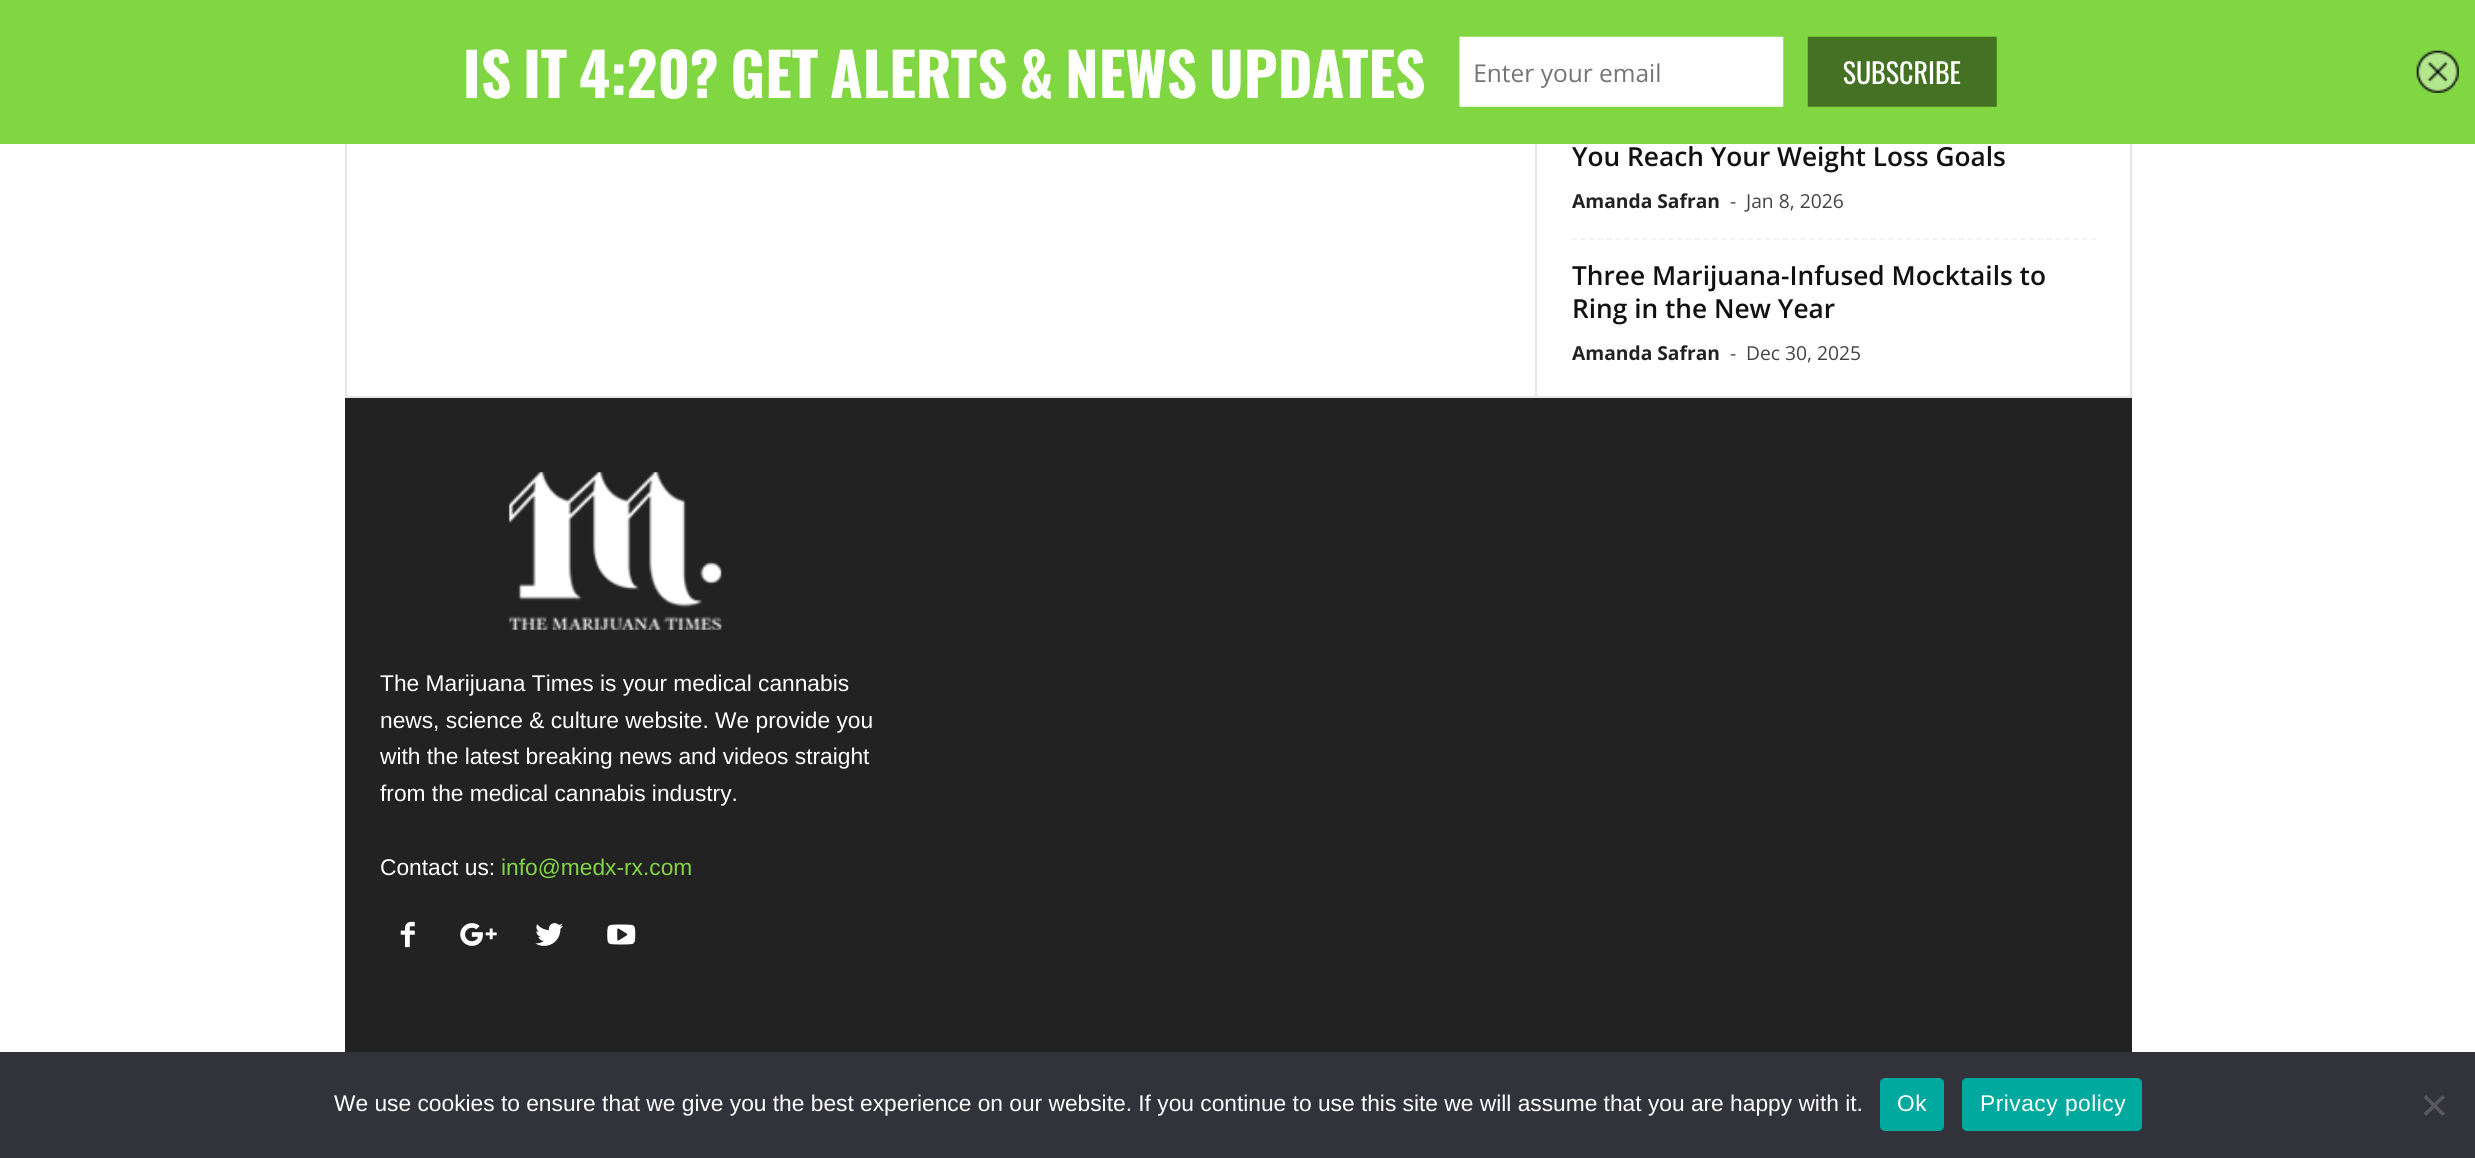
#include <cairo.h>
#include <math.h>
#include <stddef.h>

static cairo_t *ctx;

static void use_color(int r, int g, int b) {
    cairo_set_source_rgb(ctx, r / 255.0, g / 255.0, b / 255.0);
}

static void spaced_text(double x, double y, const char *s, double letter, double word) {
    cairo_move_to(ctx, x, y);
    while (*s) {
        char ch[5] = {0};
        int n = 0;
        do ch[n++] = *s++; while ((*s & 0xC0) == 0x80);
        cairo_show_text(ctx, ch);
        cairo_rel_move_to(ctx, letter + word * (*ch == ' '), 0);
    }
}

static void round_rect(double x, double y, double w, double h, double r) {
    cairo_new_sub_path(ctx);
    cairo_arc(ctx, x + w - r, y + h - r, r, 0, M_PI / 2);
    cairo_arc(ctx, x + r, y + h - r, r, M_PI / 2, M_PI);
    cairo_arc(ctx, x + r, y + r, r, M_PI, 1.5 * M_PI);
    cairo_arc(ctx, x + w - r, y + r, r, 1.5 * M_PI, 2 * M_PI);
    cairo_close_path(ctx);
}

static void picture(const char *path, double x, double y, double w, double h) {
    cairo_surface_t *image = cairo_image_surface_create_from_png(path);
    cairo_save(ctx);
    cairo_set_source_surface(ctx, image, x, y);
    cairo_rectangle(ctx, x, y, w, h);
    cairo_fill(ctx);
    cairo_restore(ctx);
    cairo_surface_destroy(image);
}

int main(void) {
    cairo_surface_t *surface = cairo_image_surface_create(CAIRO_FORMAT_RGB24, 2475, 1158);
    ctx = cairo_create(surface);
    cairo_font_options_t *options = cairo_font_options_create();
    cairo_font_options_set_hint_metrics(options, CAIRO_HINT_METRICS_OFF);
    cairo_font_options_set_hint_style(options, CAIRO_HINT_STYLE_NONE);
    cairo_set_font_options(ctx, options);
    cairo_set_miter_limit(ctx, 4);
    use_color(255, 255, 255);
    cairo_paint(ctx);
    picture("img1.png", 0, 0, 2475, 144);
    use_color(230, 230, 230);
    cairo_rectangle(ctx, 345, 396, 1787, 2);
    cairo_fill(ctx);
    cairo_rectangle(ctx, 345, 144, 2, 252);
    cairo_fill(ctx);
    cairo_rectangle(ctx, 1535, 144, 2, 252);
    cairo_fill(ctx);
    cairo_new_path(ctx);
    cairo_move_to(ctx, 1571.5, 239);
    cairo_line_to(ctx, 2096.5, 239);
    use_color(241, 241, 241);
    cairo_set_line_width(ctx, 1.8);
    cairo_set_dash(ctx, (double[]){5.25, 3.55}, 2, 0);
    cairo_stroke(ctx);
    cairo_select_font_face(ctx, "Open Sans SemiBold", CAIRO_FONT_SLANT_NORMAL, CAIRO_FONT_WEIGHT_NORMAL);
    cairo_set_font_size(ctx, 26.25);
    use_color(17, 17, 17);
    cairo_move_to(ctx, 1572, 166);
    cairo_show_text(ctx, "You Reach Your Weight Loss Goals");
    cairo_select_font_face(ctx, "Open Sans", CAIRO_FONT_SLANT_NORMAL, CAIRO_FONT_WEIGHT_BOLD);
    cairo_set_font_size(ctx, 19.25);
    use_color(34, 34, 34);
    cairo_move_to(ctx, 1572, 208);
    cairo_show_text(ctx, "Amanda Safran");
    cairo_select_font_face(ctx, "Open Sans", CAIRO_FONT_SLANT_NORMAL, CAIRO_FONT_WEIGHT_NORMAL);
    use_color(68, 68, 68);
    cairo_move_to(ctx, 1730, 208);
    cairo_show_text(ctx, "-");
    cairo_move_to(ctx, 1746, 208);
    cairo_show_text(ctx, "Jan 8, 2026");
    cairo_select_font_face(ctx, "Open Sans SemiBold", CAIRO_FONT_SLANT_NORMAL, CAIRO_FONT_WEIGHT_NORMAL);
    cairo_set_font_size(ctx, 26.25);
    use_color(17, 17, 17);
    cairo_move_to(ctx, 1572, 285);
    cairo_show_text(ctx, "Three Marijuana-Infused Mocktails to");
    cairo_move_to(ctx, 1572, 318);
    cairo_show_text(ctx, "Ring in the New Year");
    cairo_select_font_face(ctx, "Open Sans", CAIRO_FONT_SLANT_NORMAL, CAIRO_FONT_WEIGHT_BOLD);
    cairo_set_font_size(ctx, 19.25);
    use_color(34, 34, 34);
    cairo_move_to(ctx, 1572, 360);
    cairo_show_text(ctx, "Amanda Safran");
    cairo_select_font_face(ctx, "Open Sans", CAIRO_FONT_SLANT_NORMAL, CAIRO_FONT_WEIGHT_NORMAL);
    use_color(68, 68, 68);
    cairo_move_to(ctx, 1730, 360);
    cairo_show_text(ctx, "-");
    cairo_move_to(ctx, 1746, 360);
    cairo_show_text(ctx, "Dec 30, 2025");
    use_color(230, 230, 230);
    cairo_rectangle(ctx, 2130, 144, 2, 252);
    cairo_fill(ctx);
    use_color(34, 34, 34);
    cairo_rectangle(ctx, 345, 398, 1787, 654);
    cairo_fill(ctx);
    picture("img2.png", 508, 472, 214, 158);
    cairo_select_font_face(ctx, "Liberation Sans", CAIRO_FONT_SLANT_NORMAL, CAIRO_FONT_WEIGHT_NORMAL);
    cairo_set_font_size(ctx, 22.75);
    use_color(255, 255, 255);
    cairo_move_to(ctx, 380, 691);
    cairo_show_text(ctx, "The Marijuana Times is your medical cannabis");
    cairo_move_to(ctx, 380, 728);
    cairo_show_text(ctx, "news, science & culture website. We provide you");
    cairo_move_to(ctx, 380, 764);
    cairo_show_text(ctx, "with the latest breaking news and videos straight");
    cairo_move_to(ctx, 380, 801);
    cairo_show_text(ctx, "from the medical cannabis industry.");
    cairo_move_to(ctx, 380, 875);
    cairo_show_text(ctx, "Contact us:");
    use_color(129, 215, 66);
    cairo_move_to(ctx, 501, 875);
    cairo_show_text(ctx, "info@medx-rx.com");
    picture("img3.png", 400, 921, 15, 27);
    picture("img4.png", 460, 923, 37, 23);
    picture("img5.png", 535, 923, 28, 23);
    picture("img6.png", 607, 924, 29, 21);
    use_color(50, 50, 58);
    cairo_rectangle(ctx, 0, 1052, 2475, 106);
    cairo_fill(ctx);
    use_color(255, 255, 255);
    cairo_move_to(ctx, 334, 1111);
    cairo_show_text(ctx, "We use cookies to ensure that we give you the best experience on our website. If you continue to use this site we will assume that you are happy with it.");
    use_color(0, 169, 157);
    round_rect(1880, 1078, 64, 53, 5);
    cairo_fill(ctx);
    use_color(255, 255, 255);
    spaced_text(1897, 1111, "Ok", 0.5, 0);
    use_color(0, 169, 157);
    round_rect(1962, 1078, 180, 53, 5);
    cairo_fill(ctx);
    use_color(255, 255, 255);
    spaced_text(1980, 1111, "Privacy policy", 0.5, 0);
    use_color(89, 89, 93);
    cairo_new_path(ctx);
    cairo_move_to(ctx, 2442.5, 1095);
    cairo_line_to(ctx, 2445, 1097.5);
    cairo_line_to(ctx, 2426, 1116);
    cairo_line_to(ctx, 2423.5, 1113.5);
    cairo_close_path(ctx);
    cairo_fill(ctx);
    cairo_new_path(ctx);
    cairo_move_to(ctx, 2423.5, 1097.5);
    cairo_line_to(ctx, 2426, 1095);
    cairo_line_to(ctx, 2445, 1113.5);
    cairo_line_to(ctx, 2442.5, 1116);
    cairo_close_path(ctx);
    cairo_fill(ctx);
    cairo_surface_write_to_png(surface, "result.png");
    cairo_font_options_destroy(options);
    cairo_destroy(ctx);
    cairo_surface_destroy(surface);
    return 0;
}
